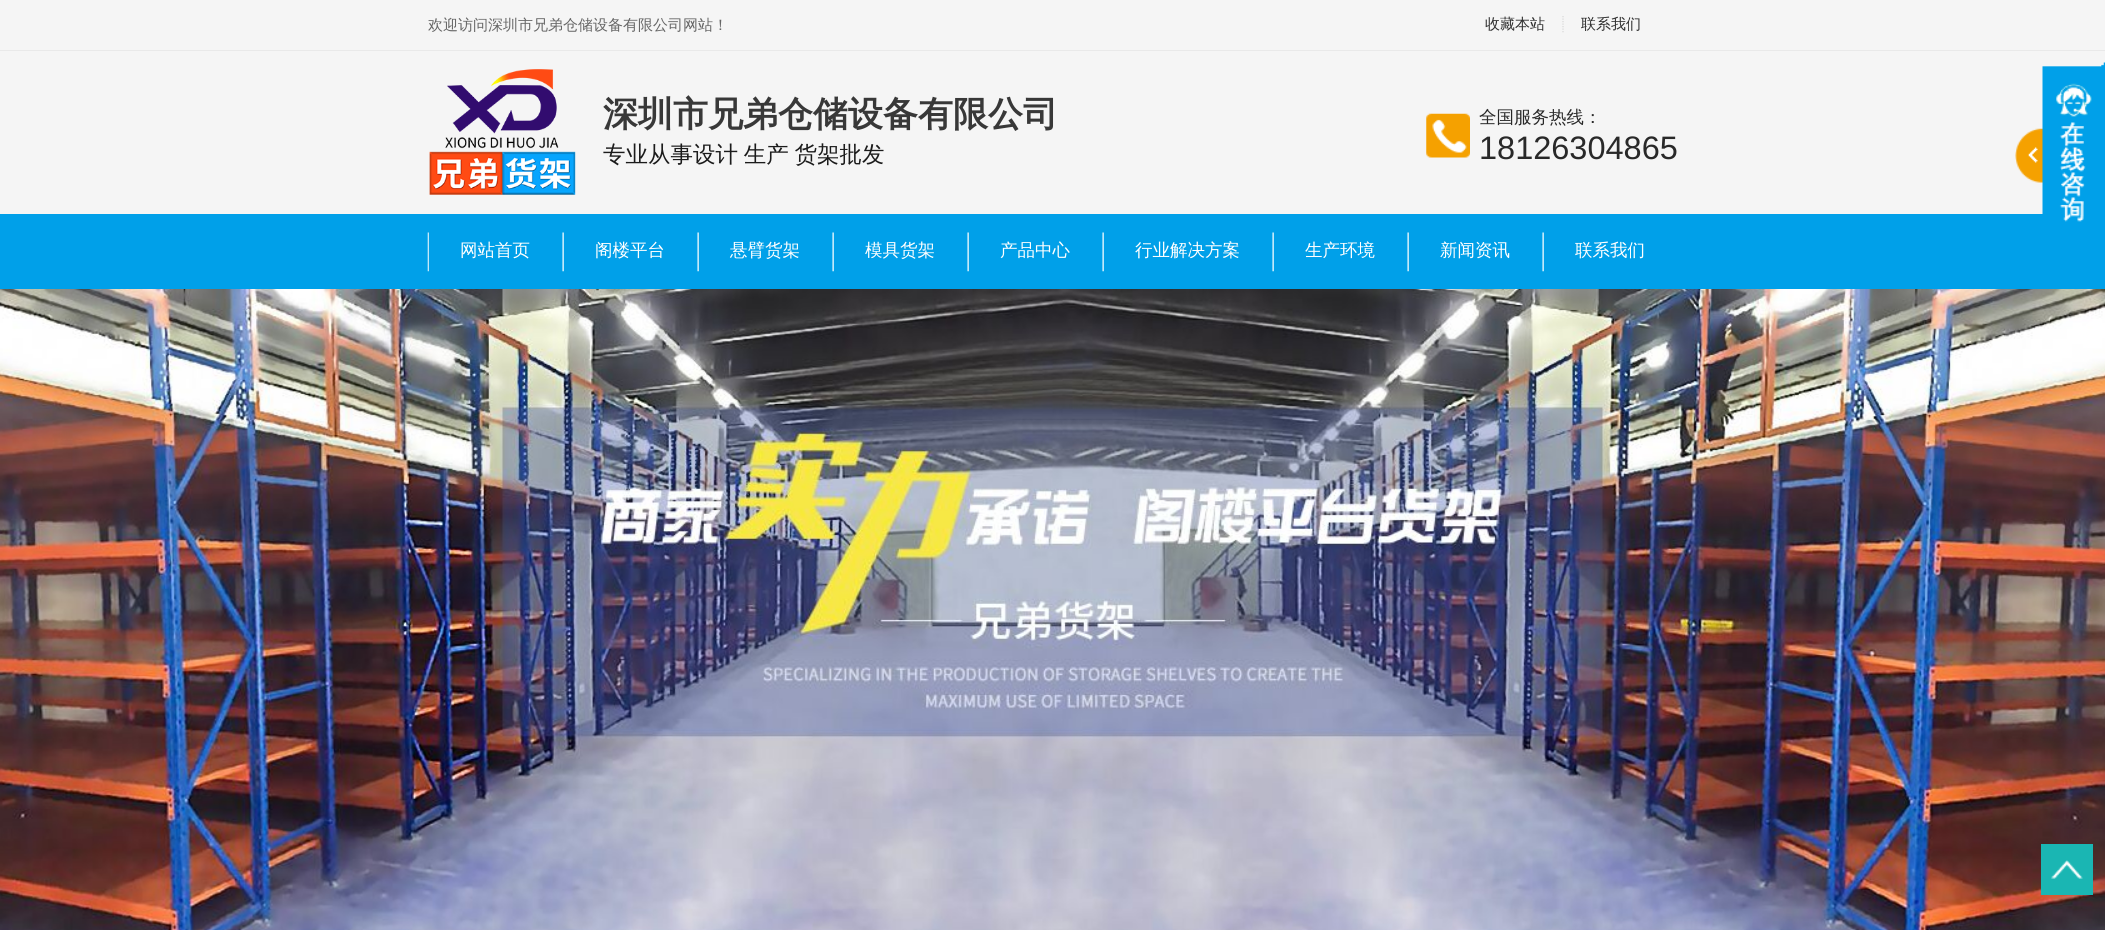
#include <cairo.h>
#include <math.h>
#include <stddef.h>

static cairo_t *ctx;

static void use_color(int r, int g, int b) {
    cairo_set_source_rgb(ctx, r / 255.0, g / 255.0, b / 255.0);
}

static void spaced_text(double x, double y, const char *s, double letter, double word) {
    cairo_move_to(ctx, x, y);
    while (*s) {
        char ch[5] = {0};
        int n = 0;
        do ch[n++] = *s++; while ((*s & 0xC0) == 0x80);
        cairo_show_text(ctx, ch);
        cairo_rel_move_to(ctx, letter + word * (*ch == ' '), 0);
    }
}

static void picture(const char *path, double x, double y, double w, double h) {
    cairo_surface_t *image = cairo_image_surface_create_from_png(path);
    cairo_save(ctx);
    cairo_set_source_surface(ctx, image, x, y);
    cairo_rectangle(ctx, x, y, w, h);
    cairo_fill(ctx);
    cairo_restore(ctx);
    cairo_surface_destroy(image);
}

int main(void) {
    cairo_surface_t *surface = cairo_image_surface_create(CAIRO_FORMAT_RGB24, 2105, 930);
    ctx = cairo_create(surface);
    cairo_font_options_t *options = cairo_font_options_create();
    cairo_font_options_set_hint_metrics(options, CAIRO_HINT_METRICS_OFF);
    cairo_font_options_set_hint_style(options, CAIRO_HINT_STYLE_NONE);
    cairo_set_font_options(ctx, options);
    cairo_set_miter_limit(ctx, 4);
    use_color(255, 255, 255);
    cairo_paint(ctx);
    use_color(245, 245, 245);
    cairo_rectangle(ctx, 0, 0, 2105, 214);
    cairo_fill(ctx);
    use_color(233, 233, 233);
    cairo_rectangle(ctx, 0, 50, 2105, 1);
    cairo_fill(ctx);
    cairo_select_font_face(ctx, "WenQuanYi Zen Hei Medium", CAIRO_FONT_SLANT_NORMAL, CAIRO_FONT_WEIGHT_NORMAL);
    cairo_set_font_size(ctx, 15);
    use_color(102, 102, 102);
    cairo_move_to(ctx, 428, 30);
    cairo_show_text(ctx, "欢迎访问深圳市兄弟仓储设备有限公司网站！");
    use_color(48, 48, 48);
    cairo_move_to(ctx, 1485, 29);
    cairo_show_text(ctx, "收藏本站");
    cairo_new_path(ctx);
    cairo_move_to(ctx, 1563, 16);
    cairo_line_to(ctx, 1563, 32.5);
    use_color(215, 215, 215);
    cairo_set_line_width(ctx, 1.2);
    cairo_set_dash(ctx, (double[]){1.25, 1.25}, 2, 0);
    cairo_stroke(ctx);
    use_color(48, 48, 48);
    cairo_move_to(ctx, 1581, 29);
    cairo_show_text(ctx, "联系我们");
    picture("img1.png", 429, 69, 147, 126);
    cairo_select_font_face(ctx, "WenQuanYi Zen Hei", CAIRO_FONT_SLANT_NORMAL, CAIRO_FONT_WEIGHT_BOLD);
    cairo_set_font_size(ctx, 35);
    use_color(56, 56, 56);
    cairo_move_to(ctx, 603, 126);
    cairo_show_text(ctx, "深圳市兄弟仓储设备有限公司");
    cairo_select_font_face(ctx, "WenQuanYi Zen Hei Medium", CAIRO_FONT_SLANT_NORMAL, CAIRO_FONT_WEIGHT_NORMAL);
    cairo_set_font_size(ctx, 22.5);
    use_color(27, 27, 27);
    spaced_text(603, 162, "专业从事设计 生产 货架批发", 0, -1);
    picture("img2.png", 1426, 113, 44, 45);
    cairo_set_font_size(ctx, 17.5);
    use_color(41, 41, 41);
    cairo_move_to(ctx, 1479, 123);
    cairo_show_text(ctx, "全国服务热线：");
    cairo_select_font_face(ctx, "Liberation Sans", CAIRO_FONT_SLANT_NORMAL, CAIRO_FONT_WEIGHT_NORMAL);
    cairo_set_font_size(ctx, 32.5);
    cairo_move_to(ctx, 1479, 159);
    cairo_show_text(ctx, "18126304865");
    use_color(0, 160, 233);
    cairo_rectangle(ctx, 0, 214, 2105, 75);
    cairo_fill(ctx);
    picture("img3.png", 427, 232, 2, 40);
    cairo_select_font_face(ctx, "WenQuanYi Zen Hei Medium", CAIRO_FONT_SLANT_NORMAL, CAIRO_FONT_WEIGHT_NORMAL);
    cairo_set_font_size(ctx, 17.5);
    use_color(255, 255, 255);
    cairo_move_to(ctx, 460, 256);
    cairo_show_text(ctx, "网站首页");
    picture("img4.png", 562, 232, 2, 40);
    cairo_move_to(ctx, 595, 256);
    cairo_show_text(ctx, "阁楼平台");
    picture("img4.png", 697, 232, 2, 40);
    cairo_move_to(ctx, 730, 256);
    cairo_show_text(ctx, "悬臂货架");
    picture("img4.png", 832, 232, 2, 40);
    cairo_move_to(ctx, 865, 256);
    cairo_show_text(ctx, "模具货架");
    picture("img4.png", 967, 232, 2, 40);
    cairo_move_to(ctx, 1000, 256);
    cairo_show_text(ctx, "产品中心");
    picture("img4.png", 1102, 232, 2, 40);
    cairo_move_to(ctx, 1135, 256);
    cairo_show_text(ctx, "行业解决方案");
    picture("img4.png", 1272, 232, 2, 40);
    cairo_move_to(ctx, 1305, 256);
    cairo_show_text(ctx, "生产环境");
    picture("img4.png", 1407, 232, 2, 40);
    cairo_move_to(ctx, 1440, 256);
    cairo_show_text(ctx, "新闻资讯");
    picture("img4.png", 1542, 232, 2, 40);
    cairo_move_to(ctx, 1575, 256);
    cairo_show_text(ctx, "联系我们");
    picture("img5.png", 2015, 62, 90, 160);
    picture("img6.png", 0, 289, 2105, 641);
    use_color(26, 182, 179);
    cairo_rectangle(ctx, 2041, 844, 52, 51);
    cairo_fill(ctx);
    picture("img7.png", 2051, 860, 32, 19);
    cairo_surface_write_to_png(surface, "result.png");
    cairo_font_options_destroy(options);
    cairo_destroy(ctx);
    cairo_surface_destroy(surface);
    return 0;
}
